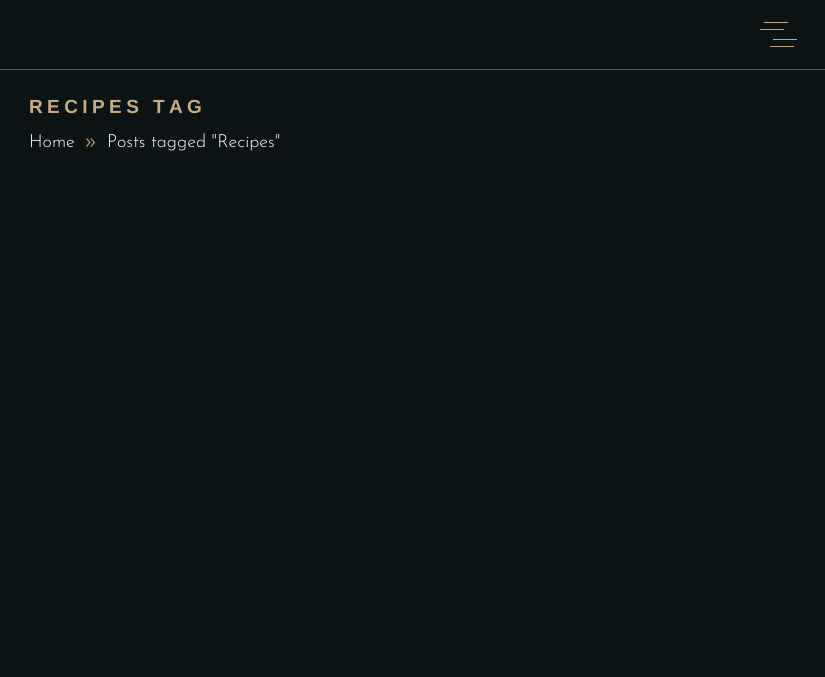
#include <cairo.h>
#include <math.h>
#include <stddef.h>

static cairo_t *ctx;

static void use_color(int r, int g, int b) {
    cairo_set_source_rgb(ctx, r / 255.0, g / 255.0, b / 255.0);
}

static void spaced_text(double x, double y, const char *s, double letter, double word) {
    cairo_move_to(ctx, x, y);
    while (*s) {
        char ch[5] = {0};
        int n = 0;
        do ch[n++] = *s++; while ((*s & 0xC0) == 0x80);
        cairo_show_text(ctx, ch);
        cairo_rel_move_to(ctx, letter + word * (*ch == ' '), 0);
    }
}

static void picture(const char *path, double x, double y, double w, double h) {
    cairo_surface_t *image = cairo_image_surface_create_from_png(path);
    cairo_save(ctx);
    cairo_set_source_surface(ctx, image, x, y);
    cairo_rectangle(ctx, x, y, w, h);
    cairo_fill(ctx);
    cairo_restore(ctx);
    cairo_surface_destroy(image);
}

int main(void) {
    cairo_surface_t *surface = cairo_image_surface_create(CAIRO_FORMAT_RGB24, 825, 677);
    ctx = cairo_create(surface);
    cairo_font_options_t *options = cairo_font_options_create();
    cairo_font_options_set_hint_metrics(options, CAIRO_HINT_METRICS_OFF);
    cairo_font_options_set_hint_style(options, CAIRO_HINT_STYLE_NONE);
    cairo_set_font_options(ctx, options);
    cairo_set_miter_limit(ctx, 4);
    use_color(11, 19, 21);
    cairo_paint(ctx);
    use_color(113, 91, 62);
    cairo_rectangle(ctx, 0, 69, 825, 1);
    cairo_fill(ctx);
    use_color(201, 171, 129);
    cairo_rectangle(ctx, 764, 22, 24, 1);
    cairo_fill(ctx);
    cairo_rectangle(ctx, 760, 29, 24, 1);
    cairo_fill(ctx);
    cairo_rectangle(ctx, 773, 39, 24, 1);
    cairo_fill(ctx);
    cairo_rectangle(ctx, 770, 46, 24, 1);
    cairo_fill(ctx);
    cairo_select_font_face(ctx, "Liberation Sans", CAIRO_FONT_SLANT_NORMAL, CAIRO_FONT_WEIGHT_BOLD);
    cairo_set_font_size(ctx, 19);
    spaced_text(29, 113, "RECIPES TAG", 4.4, 0);
    cairo_select_font_face(ctx, "Josefin Sans Light", CAIRO_FONT_SLANT_NORMAL, CAIRO_FONT_WEIGHT_NORMAL);
    cairo_set_font_size(ctx, 18);
    use_color(255, 255, 255);
    cairo_move_to(ctx, 29, 147);
    cairo_show_text(ctx, "Home");
    picture("img1.png", 86, 138, 9, 9);
    cairo_move_to(ctx, 107, 147);
    cairo_show_text(ctx, "Posts tagged \"Recipes\"");
    cairo_surface_write_to_png(surface, "result.png");
    cairo_font_options_destroy(options);
    cairo_destroy(ctx);
    cairo_surface_destroy(surface);
    return 0;
}
